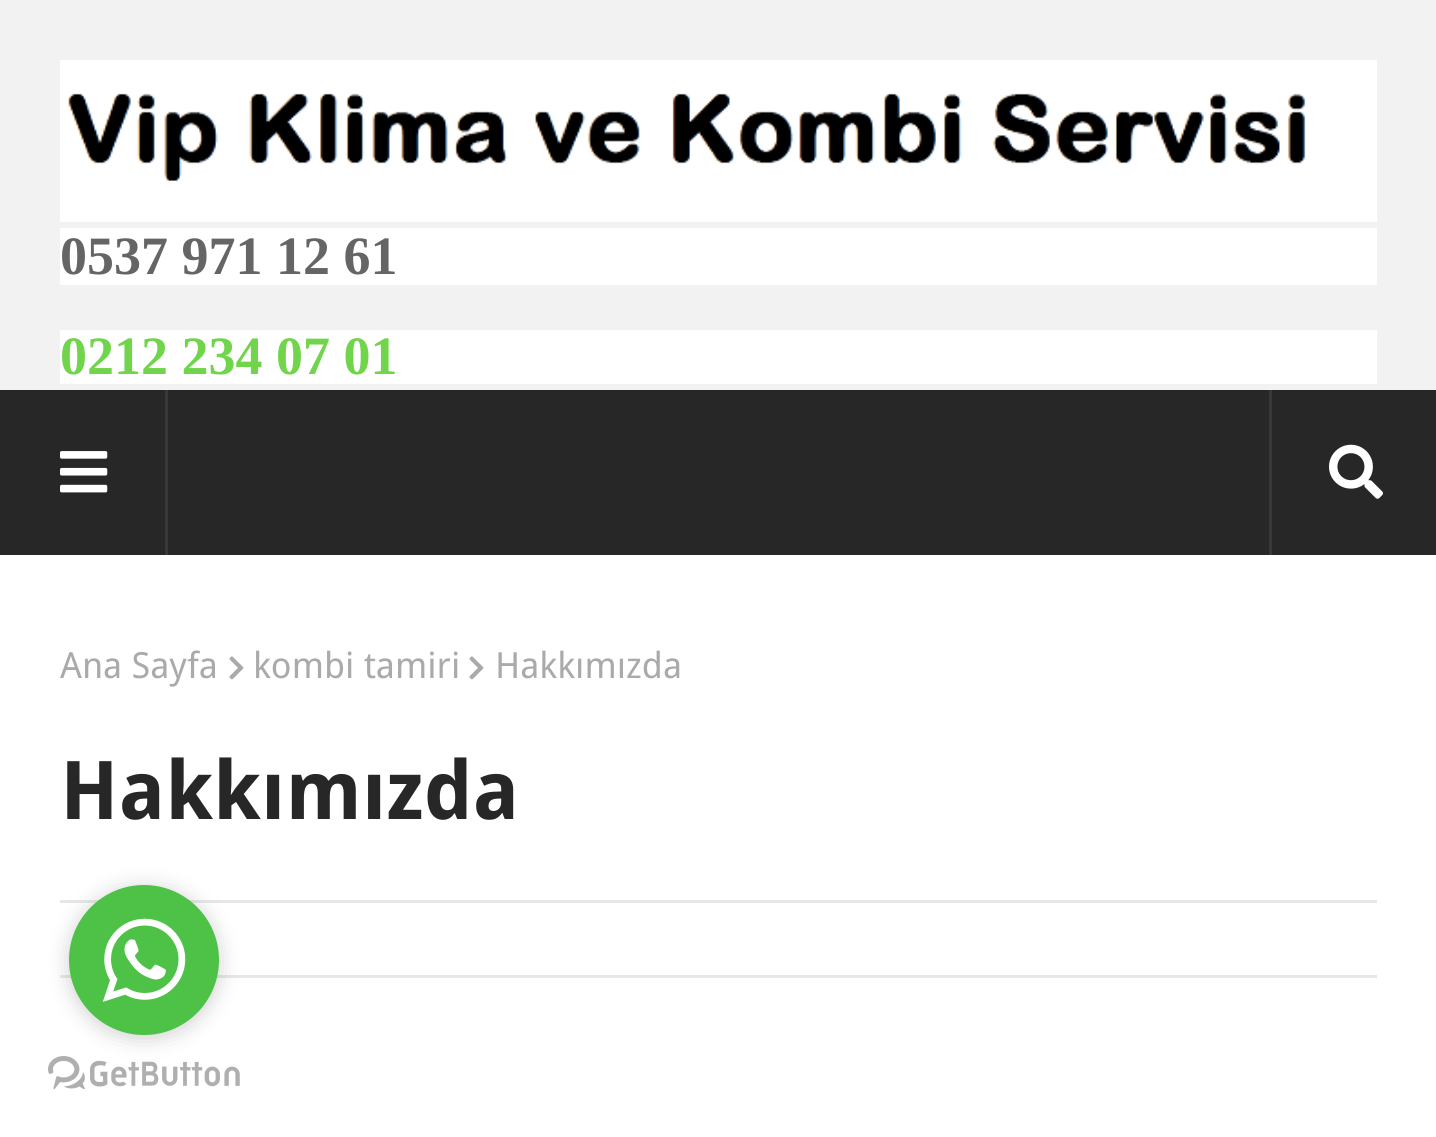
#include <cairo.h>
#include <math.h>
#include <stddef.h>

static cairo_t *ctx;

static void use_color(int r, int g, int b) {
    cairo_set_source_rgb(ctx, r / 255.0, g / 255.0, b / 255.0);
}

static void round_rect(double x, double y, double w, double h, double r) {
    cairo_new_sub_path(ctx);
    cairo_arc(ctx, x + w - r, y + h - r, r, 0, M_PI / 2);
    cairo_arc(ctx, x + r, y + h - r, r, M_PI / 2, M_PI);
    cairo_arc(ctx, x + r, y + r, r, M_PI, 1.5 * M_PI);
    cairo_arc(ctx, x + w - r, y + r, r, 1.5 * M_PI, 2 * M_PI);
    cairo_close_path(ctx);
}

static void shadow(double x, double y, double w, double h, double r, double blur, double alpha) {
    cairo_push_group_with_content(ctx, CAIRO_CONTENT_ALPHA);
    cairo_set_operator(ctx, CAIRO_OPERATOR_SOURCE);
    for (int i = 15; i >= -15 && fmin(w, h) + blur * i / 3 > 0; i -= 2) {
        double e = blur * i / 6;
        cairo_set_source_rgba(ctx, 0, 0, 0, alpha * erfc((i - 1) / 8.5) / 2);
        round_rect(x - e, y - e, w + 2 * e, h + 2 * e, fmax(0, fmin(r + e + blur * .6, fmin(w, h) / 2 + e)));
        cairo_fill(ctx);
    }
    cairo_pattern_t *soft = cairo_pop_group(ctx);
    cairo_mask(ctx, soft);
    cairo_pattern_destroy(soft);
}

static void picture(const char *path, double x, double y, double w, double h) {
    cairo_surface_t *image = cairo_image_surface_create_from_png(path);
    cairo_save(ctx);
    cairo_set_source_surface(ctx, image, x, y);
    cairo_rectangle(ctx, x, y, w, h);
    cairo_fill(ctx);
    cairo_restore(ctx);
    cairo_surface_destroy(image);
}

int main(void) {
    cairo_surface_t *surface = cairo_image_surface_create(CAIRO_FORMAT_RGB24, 1436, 1137);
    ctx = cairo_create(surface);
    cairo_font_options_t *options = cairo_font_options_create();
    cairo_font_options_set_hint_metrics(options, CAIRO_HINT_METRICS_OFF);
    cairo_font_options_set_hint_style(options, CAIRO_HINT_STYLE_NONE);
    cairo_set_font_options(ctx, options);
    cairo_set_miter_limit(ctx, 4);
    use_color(255, 255, 255);
    cairo_paint(ctx);
    use_color(242, 242, 242);
    cairo_rectangle(ctx, 0, 0, 1436, 390);
    cairo_fill(ctx);
    picture("img1.png", 60, 60, 1317, 162);
    use_color(255, 255, 255);
    cairo_rectangle(ctx, 60, 228, 1317, 57);
    cairo_fill(ctx);
    cairo_select_font_face(ctx, "Liberation Serif", CAIRO_FONT_SLANT_NORMAL, CAIRO_FONT_WEIGHT_BOLD);
    cairo_set_font_size(ctx, 54);
    use_color(101, 101, 101);
    cairo_move_to(ctx, 60, 274);
    cairo_show_text(ctx, "0537 971 12 61");
    use_color(255, 255, 255);
    cairo_rectangle(ctx, 60, 330, 1317, 54);
    cairo_fill(ctx);
    use_color(113, 213, 76);
    cairo_move_to(ctx, 60, 374);
    cairo_show_text(ctx, "0212 234 07 01");
    use_color(39, 39, 39);
    cairo_rectangle(ctx, 0, 390, 1436, 165);
    cairo_fill(ctx);
    use_color(56, 56, 56);
    cairo_rectangle(ctx, 165, 390, 3, 165);
    cairo_fill(ctx);
    picture("img2.png", 60, 451, 48, 42);
    cairo_rectangle(ctx, 1269, 390, 3, 165);
    cairo_fill(ctx);
    picture("img3.png", 1329, 444, 54, 55);
    cairo_select_font_face(ctx, "Droid Sans", CAIRO_FONT_SLANT_NORMAL, CAIRO_FONT_WEIGHT_NORMAL);
    cairo_set_font_size(ctx, 36);
    use_color(170, 170, 170);
    cairo_move_to(ctx, 60, 678);
    cairo_show_text(ctx, "Ana Sayfa");
    picture("img4.png", 229, 656, 15, 24);
    cairo_move_to(ctx, 253, 678);
    cairo_show_text(ctx, "kombi tamiri");
    picture("img4.png", 469, 656, 15, 24);
    cairo_move_to(ctx, 495, 678);
    cairo_show_text(ctx, "Hakkımızda");
    cairo_select_font_face(ctx, "Droid Sans", CAIRO_FONT_SLANT_NORMAL, CAIRO_FONT_WEIGHT_BOLD);
    cairo_set_font_size(ctx, 81);
    use_color(39, 39, 39);
    cairo_move_to(ctx, 60, 819);
    cairo_show_text(ctx, "Hakkımızda");
    use_color(231, 231, 231);
    cairo_rectangle(ctx, 60, 900, 1317, 3);
    cairo_fill(ctx);
    cairo_rectangle(ctx, 60, 975, 1317, 3);
    cairo_fill(ctx);
    picture("img6.png", 48, 1056, 192, 33);
    use_color(136, 136, 136);
    shadow(69, 888, 150, 150, 75, 10.5, 0.4);
    use_color(77, 194, 71);
    cairo_arc(ctx, 144, 960, 75, 0, 2 * M_PI);
    cairo_fill(ctx);
    picture("img5.png", 102, 918, 84, 84);
    cairo_surface_write_to_png(surface, "result.png");
    cairo_font_options_destroy(options);
    cairo_destroy(ctx);
    cairo_surface_destroy(surface);
    return 0;
}
